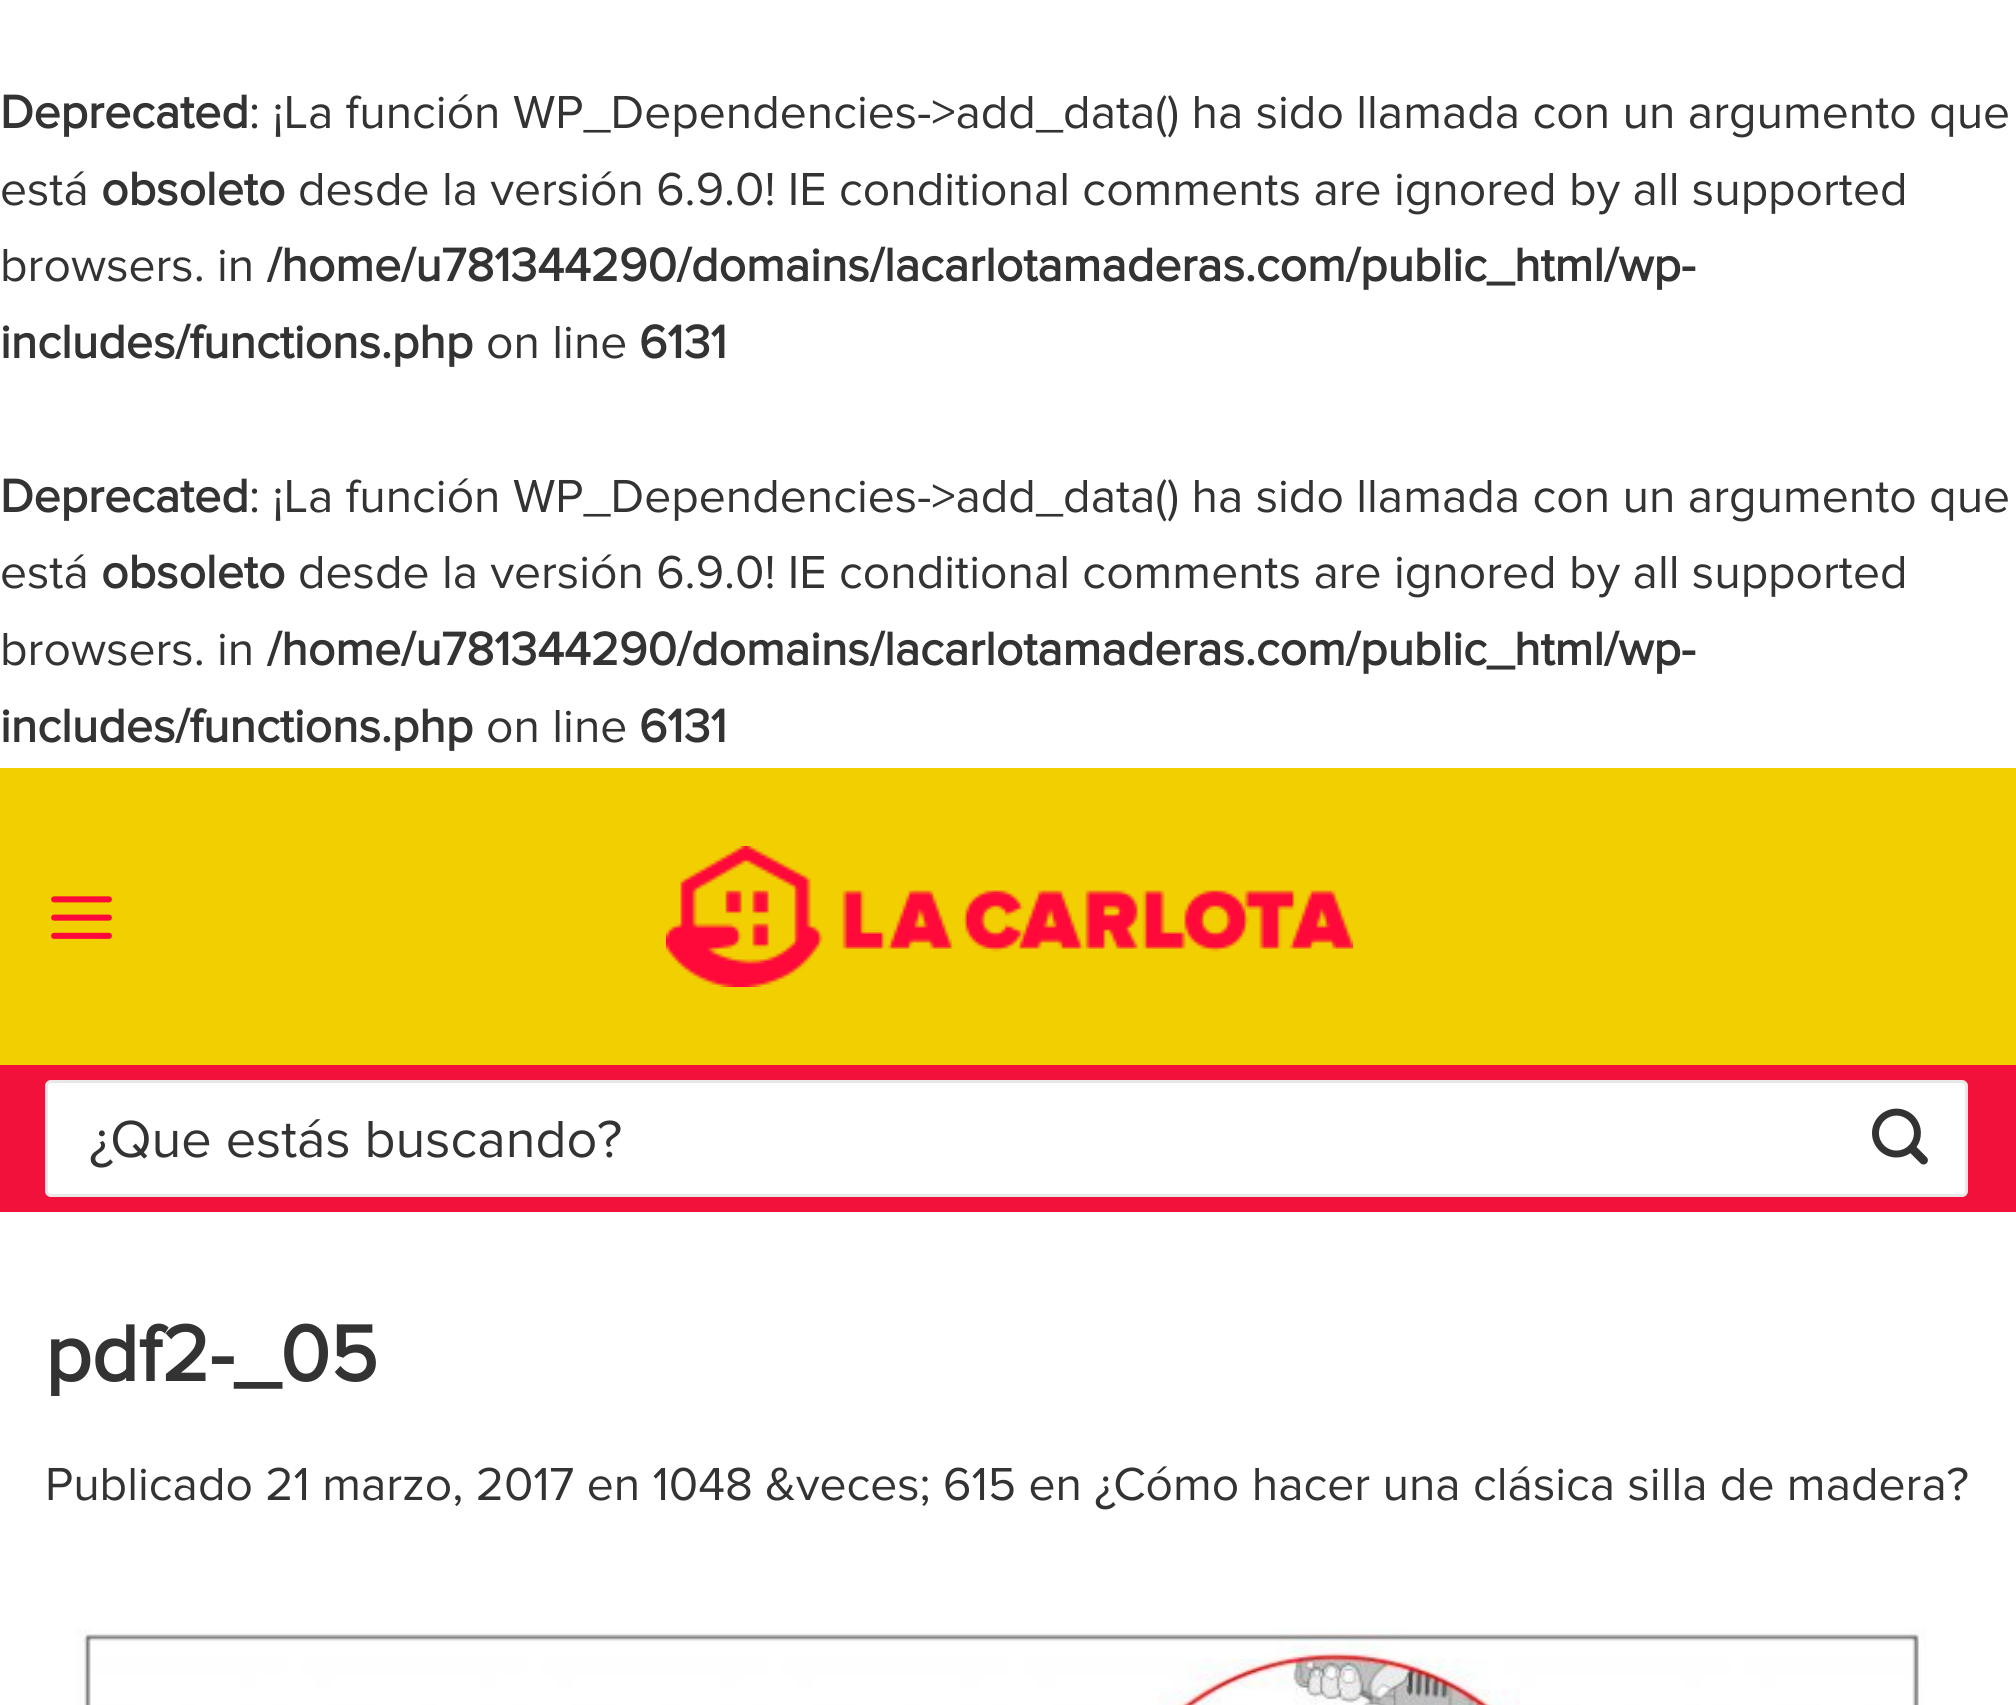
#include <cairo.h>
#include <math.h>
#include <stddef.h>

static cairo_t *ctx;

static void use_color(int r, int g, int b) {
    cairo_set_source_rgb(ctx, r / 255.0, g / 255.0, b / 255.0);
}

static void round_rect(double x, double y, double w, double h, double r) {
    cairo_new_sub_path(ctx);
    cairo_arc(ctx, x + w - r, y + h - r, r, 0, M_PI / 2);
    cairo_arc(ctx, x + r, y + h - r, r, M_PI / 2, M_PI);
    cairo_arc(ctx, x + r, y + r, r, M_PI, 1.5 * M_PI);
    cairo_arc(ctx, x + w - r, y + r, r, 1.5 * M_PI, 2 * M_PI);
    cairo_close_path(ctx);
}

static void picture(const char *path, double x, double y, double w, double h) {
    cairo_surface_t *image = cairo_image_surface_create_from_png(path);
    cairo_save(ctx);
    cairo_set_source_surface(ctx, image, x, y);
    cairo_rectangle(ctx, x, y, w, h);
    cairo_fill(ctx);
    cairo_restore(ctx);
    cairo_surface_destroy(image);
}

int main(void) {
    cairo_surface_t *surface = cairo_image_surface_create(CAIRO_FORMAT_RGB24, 2016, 1705);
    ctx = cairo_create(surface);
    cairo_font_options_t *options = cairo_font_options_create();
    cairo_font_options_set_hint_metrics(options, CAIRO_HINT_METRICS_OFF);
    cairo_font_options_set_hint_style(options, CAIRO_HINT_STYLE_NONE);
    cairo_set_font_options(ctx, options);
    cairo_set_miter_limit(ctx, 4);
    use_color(255, 255, 255);
    cairo_paint(ctx);
    cairo_select_font_face(ctx, "Proxima Nova", CAIRO_FONT_SLANT_NORMAL, CAIRO_FONT_WEIGHT_BOLD);
    cairo_set_font_size(ctx, 48);
    use_color(51, 51, 51);
    cairo_move_to(ctx, 0, 128);
    cairo_show_text(ctx, "Deprecated");
    cairo_select_font_face(ctx, "Proxima Nova", CAIRO_FONT_SLANT_NORMAL, CAIRO_FONT_WEIGHT_NORMAL);
    cairo_move_to(ctx, 249, 128);
    cairo_show_text(ctx, ": ¡La función WP_Dependencies->add_data() ha sido llamada con un argumento que");
    cairo_move_to(ctx, 0, 205);
    cairo_show_text(ctx, "está");
    cairo_select_font_face(ctx, "Proxima Nova", CAIRO_FONT_SLANT_NORMAL, CAIRO_FONT_WEIGHT_BOLD);
    cairo_move_to(ctx, 101, 205);
    cairo_show_text(ctx, "obsoleto");
    cairo_select_font_face(ctx, "Proxima Nova", CAIRO_FONT_SLANT_NORMAL, CAIRO_FONT_WEIGHT_NORMAL);
    cairo_move_to(ctx, 298, 205);
    cairo_show_text(ctx, "desde la versión 6.9.0! IE conditional comments are ignored by all supported");
    cairo_move_to(ctx, 0, 281);
    cairo_show_text(ctx, "browsers. in");
    cairo_select_font_face(ctx, "Proxima Nova", CAIRO_FONT_SLANT_NORMAL, CAIRO_FONT_WEIGHT_BOLD);
    cairo_move_to(ctx, 267, 281);
    cairo_show_text(ctx, "/home/u781344290/domains/lacarlotamaderas.com/public_html/wp-");
    cairo_move_to(ctx, 0, 358);
    cairo_show_text(ctx, "includes/functions.php");
    cairo_select_font_face(ctx, "Proxima Nova", CAIRO_FONT_SLANT_NORMAL, CAIRO_FONT_WEIGHT_NORMAL);
    cairo_move_to(ctx, 486, 358);
    cairo_show_text(ctx, "on line");
    cairo_select_font_face(ctx, "Proxima Nova", CAIRO_FONT_SLANT_NORMAL, CAIRO_FONT_WEIGHT_BOLD);
    cairo_move_to(ctx, 639, 358);
    cairo_show_text(ctx, "6131");
    cairo_move_to(ctx, 0, 512);
    cairo_show_text(ctx, "Deprecated");
    cairo_select_font_face(ctx, "Proxima Nova", CAIRO_FONT_SLANT_NORMAL, CAIRO_FONT_WEIGHT_NORMAL);
    cairo_move_to(ctx, 249, 512);
    cairo_show_text(ctx, ": ¡La función WP_Dependencies->add_data() ha sido llamada con un argumento que");
    cairo_move_to(ctx, 0, 588);
    cairo_show_text(ctx, "está");
    cairo_select_font_face(ctx, "Proxima Nova", CAIRO_FONT_SLANT_NORMAL, CAIRO_FONT_WEIGHT_BOLD);
    cairo_move_to(ctx, 101, 588);
    cairo_show_text(ctx, "obsoleto");
    cairo_select_font_face(ctx, "Proxima Nova", CAIRO_FONT_SLANT_NORMAL, CAIRO_FONT_WEIGHT_NORMAL);
    cairo_move_to(ctx, 298, 588);
    cairo_show_text(ctx, "desde la versión 6.9.0! IE conditional comments are ignored by all supported");
    cairo_move_to(ctx, 0, 665);
    cairo_show_text(ctx, "browsers. in");
    cairo_select_font_face(ctx, "Proxima Nova", CAIRO_FONT_SLANT_NORMAL, CAIRO_FONT_WEIGHT_BOLD);
    cairo_move_to(ctx, 267, 665);
    cairo_show_text(ctx, "/home/u781344290/domains/lacarlotamaderas.com/public_html/wp-");
    cairo_move_to(ctx, 0, 742);
    cairo_show_text(ctx, "includes/functions.php");
    cairo_select_font_face(ctx, "Proxima Nova", CAIRO_FONT_SLANT_NORMAL, CAIRO_FONT_WEIGHT_NORMAL);
    cairo_move_to(ctx, 486, 742);
    cairo_show_text(ctx, "on line");
    cairo_select_font_face(ctx, "Proxima Nova", CAIRO_FONT_SLANT_NORMAL, CAIRO_FONT_WEIGHT_BOLD);
    cairo_move_to(ctx, 639, 742);
    cairo_show_text(ctx, "6131");
    use_color(241, 207, 0);
    cairo_rectangle(ctx, 0, 768, 2016, 297);
    cairo_fill(ctx);
    picture("img1.png", 51, 896, 61, 43);
    picture("img2.png", 666, 846, 687, 141);
    use_color(242, 17, 59);
    cairo_rectangle(ctx, 0, 1065, 2016, 147);
    cairo_fill(ctx);
    use_color(255, 255, 255);
    round_rect(45, 1080, 1923, 117, 6);
    cairo_fill(ctx);
    round_rect(46.5, 1081.5, 1920, 114, 4.5);
    cairo_set_source_rgba(ctx, 0, 0, 0, 0.09);
    cairo_set_line_width(ctx, 3);
    cairo_stroke(ctx);
    cairo_select_font_face(ctx, "Proxima Nova", CAIRO_FONT_SLANT_NORMAL, CAIRO_FONT_WEIGHT_NORMAL);
    cairo_set_font_size(ctx, 54);
    use_color(51, 51, 51);
    cairo_move_to(ctx, 89, 1157);
    cairo_show_text(ctx, "¿Que estás buscando?");
    picture("img3.png", 1872, 1108, 56, 57);
    cairo_select_font_face(ctx, "Proxima Nova", CAIRO_FONT_SLANT_NORMAL, CAIRO_FONT_WEIGHT_BOLD);
    cairo_set_font_size(ctx, 81.5);
    cairo_move_to(ctx, 45, 1381);
    cairo_show_text(ctx, "pdf2-_05");
    cairo_select_font_face(ctx, "Proxima Nova", CAIRO_FONT_SLANT_NORMAL, CAIRO_FONT_WEIGHT_NORMAL);
    cairo_set_font_size(ctx, 48);
    cairo_move_to(ctx, 45, 1500);
    cairo_show_text(ctx, "Publicado 21 marzo, 2017 en 1048 &veces; 615 en ¿Cómo hacer una clásica silla de madera?");
    picture("img4.png", 75, 1628, 1851, 77);
    cairo_surface_write_to_png(surface, "result.png");
    cairo_font_options_destroy(options);
    cairo_destroy(ctx);
    cairo_surface_destroy(surface);
    return 0;
}
